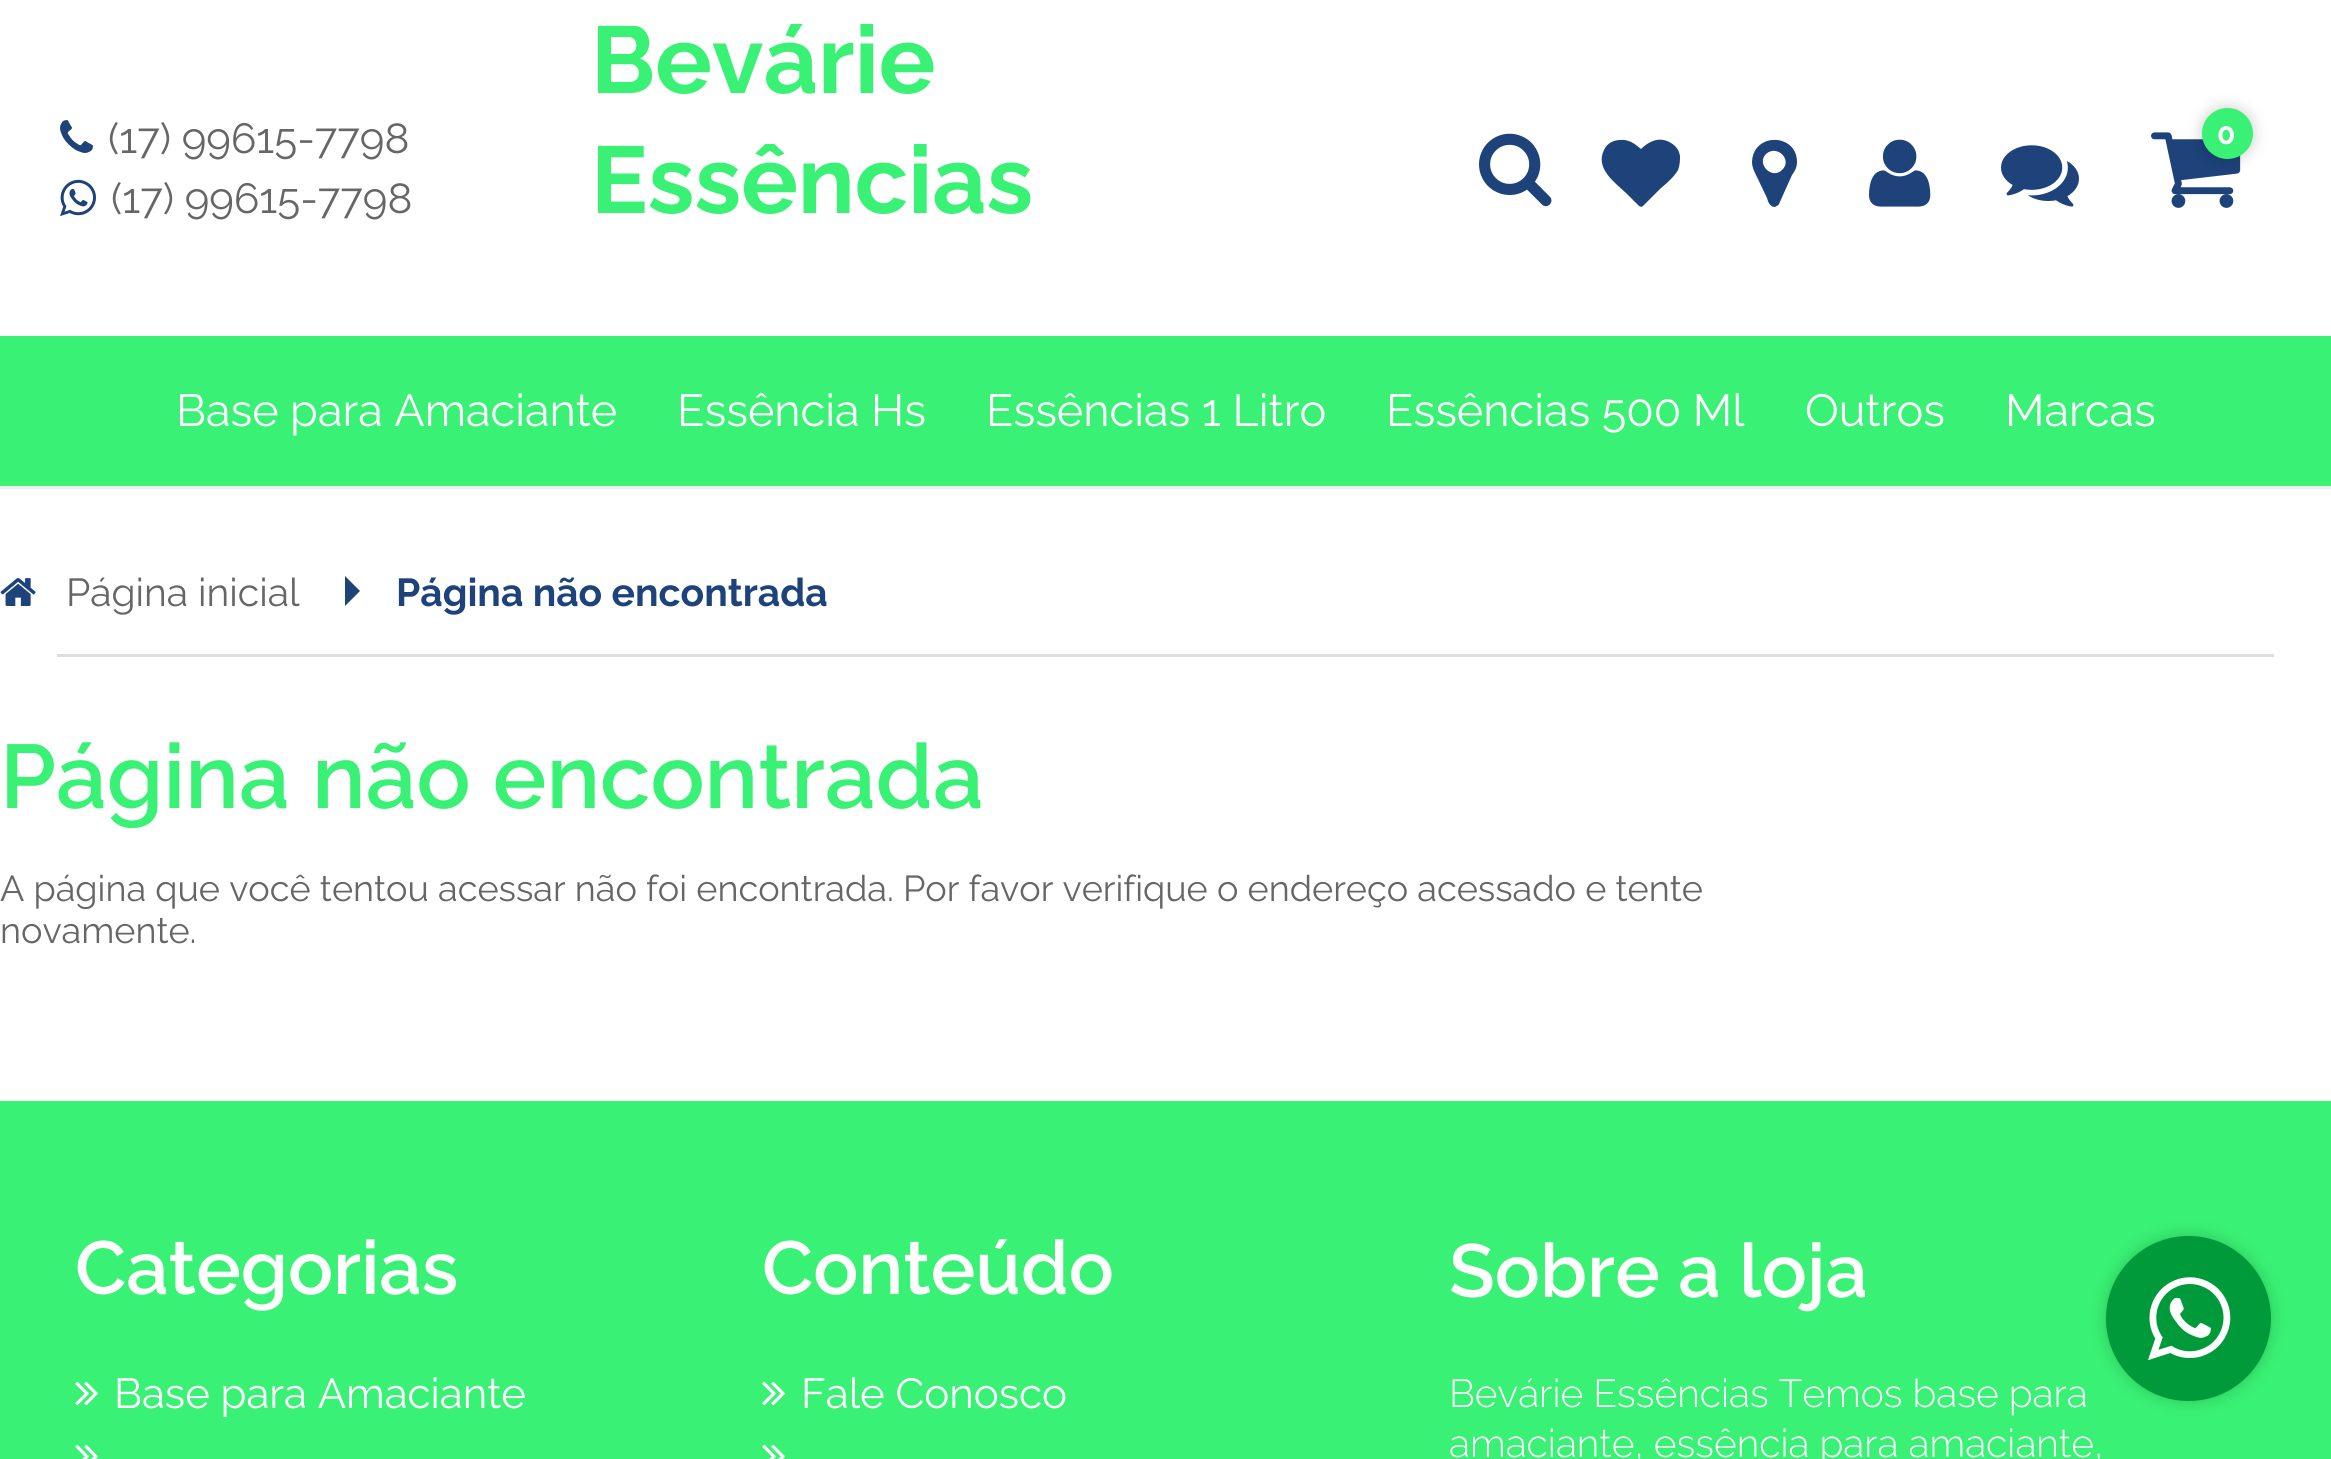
#include <cairo.h>
#include <math.h>
#include <stddef.h>

static cairo_t *ctx;

static void use_color(int r, int g, int b) {
    cairo_set_source_rgb(ctx, r / 255.0, g / 255.0, b / 255.0);
}

static void round_rect(double x, double y, double w, double h, double r) {
    cairo_new_sub_path(ctx);
    cairo_arc(ctx, x + w - r, y + h - r, r, 0, M_PI / 2);
    cairo_arc(ctx, x + r, y + h - r, r, M_PI / 2, M_PI);
    cairo_arc(ctx, x + r, y + r, r, M_PI, 1.5 * M_PI);
    cairo_arc(ctx, x + w - r, y + r, r, 1.5 * M_PI, 2 * M_PI);
    cairo_close_path(ctx);
}

static void shadow(double x, double y, double w, double h, double r, double blur, double alpha) {
    cairo_push_group_with_content(ctx, CAIRO_CONTENT_ALPHA);
    cairo_set_operator(ctx, CAIRO_OPERATOR_SOURCE);
    for (int i = 15; i >= -15 && fmin(w, h) + blur * i / 3 > 0; i -= 2) {
        double e = blur * i / 6;
        cairo_set_source_rgba(ctx, 0, 0, 0, alpha * erfc((i - 1) / 8.5) / 2);
        round_rect(x - e, y - e, w + 2 * e, h + 2 * e, fmax(0, fmin(r + e + blur * .6, fmin(w, h) / 2 + e)));
        cairo_fill(ctx);
    }
    cairo_pattern_t *soft = cairo_pop_group(ctx);
    cairo_mask(ctx, soft);
    cairo_pattern_destroy(soft);
}

static void picture(const char *path, double x, double y, double w, double h) {
    cairo_surface_t *image = cairo_image_surface_create_from_png(path);
    cairo_save(ctx);
    cairo_set_source_surface(ctx, image, x, y);
    cairo_rectangle(ctx, x, y, w, h);
    cairo_fill(ctx);
    cairo_restore(ctx);
    cairo_surface_destroy(image);
}

int main(void) {
    cairo_surface_t *surface = cairo_image_surface_create(CAIRO_FORMAT_RGB24, 2331, 1459);
    ctx = cairo_create(surface);
    cairo_font_options_t *options = cairo_font_options_create();
    cairo_font_options_set_hint_metrics(options, CAIRO_HINT_METRICS_OFF);
    cairo_font_options_set_hint_style(options, CAIRO_HINT_STYLE_NONE);
    cairo_set_font_options(ctx, options);
    cairo_set_miter_limit(ctx, 4);
    use_color(255, 255, 255);
    cairo_paint(ctx);
    use_color(238, 238, 238);
    cairo_rectangle(ctx, 0, 486, 2331, 3);
    cairo_fill(ctx);
    picture("img1.png", 60, 120, 33, 33);
    cairo_select_font_face(ctx, "Raleway", CAIRO_FONT_SLANT_NORMAL, CAIRO_FONT_WEIGHT_NORMAL);
    cairo_set_font_size(ctx, 42);
    use_color(102, 102, 102);
    cairo_move_to(ctx, 108, 153);
    cairo_show_text(ctx, "(17) 99615-7798");
    picture("img2.png", 60, 179, 36, 38);
    cairo_move_to(ctx, 111, 213);
    cairo_show_text(ctx, "(17) 99615-7798");
    cairo_select_font_face(ctx, "Raleway", CAIRO_FONT_SLANT_NORMAL, CAIRO_FONT_WEIGHT_BOLD);
    cairo_set_font_size(ctx, 94.5);
    use_color(57, 241, 116);
    cairo_move_to(ctx, 591, 93);
    cairo_show_text(ctx, "Bevárie");
    cairo_move_to(ctx, 591, 213);
    cairo_show_text(ctx, "Essências");
    picture("img3.png", 1479, 133, 73, 74);
    use_color(29, 67, 122);
    cairo_new_path(ctx);
    cairo_move_to(ctx, 1643, 206);
    cairo_curve_to(ctx, 1642, 207, 1641, 207, 1639, 206);
    cairo_line_to(ctx, 1626, 193);
    cairo_curve_to(ctx, 1614, 182, 1595, 168, 1604, 150);
    cairo_curve_to(ctx, 1607, 143, 1614, 140, 1620, 140);
    cairo_curve_to(ctx, 1629, 139, 1635, 144, 1641, 149);
    cairo_curve_to(ctx, 1649, 141, 1660, 136, 1671, 143);
    cairo_curve_to(ctx, 1676, 146, 1679, 150, 1680, 156);
    cairo_curve_to(ctx, 1680, 160, 1680, 165, 1678, 170);
    cairo_curve_to(ctx, 1674, 177, 1667, 183, 1661, 188);
    cairo_close_path(ctx);
    cairo_fill(ctx);
    cairo_new_path(ctx);
    cairo_move_to(ctx, 1782, 170);
    cairo_curve_to(ctx, 1793, 160, 1777, 144, 1766, 154);
    cairo_curve_to(ctx, 1756, 164, 1772, 180, 1782, 170);
    cairo_close_path(ctx);
    cairo_move_to(ctx, 1797, 162);
    cairo_curve_to(ctx, 1797, 167, 1795, 171, 1792, 175);
    cairo_line_to(ctx, 1779, 204);
    cairo_curve_to(ctx, 1778, 206, 1776, 206, 1775, 207);
    cairo_curve_to(ctx, 1770, 207, 1768, 202, 1767, 198);
    cairo_line_to(ctx, 1756, 175);
    cairo_curve_to(ctx, 1754, 171, 1752, 167, 1752, 162);
    cairo_curve_to(ctx, 1753, 132, 1797, 133, 1797, 162);
    cairo_close_path(ctx);
    cairo_fill(ctx);
    picture("img4.png", 1869, 139, 62, 68);
    picture("img5.png", 2001, 145, 78, 62);
    picture("img6.png", 2151, 132, 90, 76);
    use_color(0, 0, 0);
    shadow(2202, 108, 51, 51, 25.5, 7.5, 0.2);
    use_color(57, 241, 116);
    cairo_arc(ctx, 2227.5, 133.5, 25.5, 0, 2 * M_PI);
    cairo_fill(ctx);
    cairo_set_font_size(ctx, 30);
    use_color(255, 255, 255);
    cairo_move_to(ctx, 2217, 144);
    cairo_show_text(ctx, "0");
    use_color(57, 241, 116);
    cairo_rectangle(ctx, 0, 336, 2331, 150);
    cairo_fill(ctx);
    cairo_select_font_face(ctx, "Raleway", CAIRO_FONT_SLANT_NORMAL, CAIRO_FONT_WEIGHT_NORMAL);
    cairo_set_font_size(ctx, 45);
    use_color(255, 255, 255);
    cairo_move_to(ctx, 176, 426);
    cairo_show_text(ctx, "Base para Amaciante");
    cairo_move_to(ctx, 677, 426);
    cairo_show_text(ctx, "Essência Hs");
    cairo_move_to(ctx, 986, 426);
    cairo_show_text(ctx, "Essências 1 Litro");
    cairo_move_to(ctx, 1386, 426);
    cairo_show_text(ctx, "Essências 500 Ml");
    cairo_move_to(ctx, 1805, 426);
    cairo_show_text(ctx, "Outros");
    cairo_move_to(ctx, 2005, 426);
    cairo_show_text(ctx, "Marcas");
    picture("img7.png", 0, 578, 36, 28);
    cairo_set_font_size(ctx, 39);
    use_color(102, 102, 102);
    cairo_move_to(ctx, 66, 606);
    cairo_show_text(ctx, "Página inicial");
    use_color(29, 67, 122);
    cairo_new_path(ctx);
    cairo_move_to(ctx, 345, 606);
    cairo_line_to(ctx, 345, 576);
    cairo_line_to(ctx, 360, 591);
    cairo_close_path(ctx);
    cairo_fill(ctx);
    cairo_select_font_face(ctx, "Raleway", CAIRO_FONT_SLANT_NORMAL, CAIRO_FONT_WEIGHT_BOLD);
    cairo_move_to(ctx, 396, 606);
    cairo_show_text(ctx, "Página não encontrada");
    use_color(222, 222, 222);
    cairo_rectangle(ctx, 57, 654, 2217, 3);
    cairo_fill(ctx);
    cairo_select_font_face(ctx, "Raleway SemiBold", CAIRO_FONT_SLANT_NORMAL, CAIRO_FONT_WEIGHT_NORMAL);
    cairo_set_font_size(ctx, 90);
    use_color(57, 241, 116);
    cairo_move_to(ctx, 0, 808);
    cairo_show_text(ctx, "Página não encontrada");
    cairo_select_font_face(ctx, "Raleway", CAIRO_FONT_SLANT_NORMAL, CAIRO_FONT_WEIGHT_NORMAL);
    cairo_set_font_size(ctx, 36);
    use_color(102, 102, 102);
    cairo_move_to(ctx, 0, 901);
    cairo_show_text(ctx, "A página que você tentou acessar não foi encontrada. Por favor verifique o endereço acessado e tente");
    cairo_move_to(ctx, 0, 943);
    cairo_show_text(ctx, "novamente.");
    use_color(57, 241, 116);
    cairo_rectangle(ctx, 0, 1101, 2331, 358);
    cairo_fill(ctx);
    cairo_select_font_face(ctx, "Raleway SemiBold", CAIRO_FONT_SLANT_NORMAL, CAIRO_FONT_WEIGHT_NORMAL);
    cairo_set_font_size(ctx, 75);
    use_color(255, 255, 255);
    cairo_move_to(ctx, 75, 1294);
    cairo_show_text(ctx, "Categorias");
    picture("img8.png", 75, 1381, 23, 25);
    cairo_select_font_face(ctx, "Raleway", CAIRO_FONT_SLANT_NORMAL, CAIRO_FONT_WEIGHT_NORMAL);
    cairo_set_font_size(ctx, 42);
    cairo_move_to(ctx, 114, 1408);
    cairo_show_text(ctx, "Base para Amaciante");
    picture("img9.png", 75, 1444, 23, 15);
    cairo_select_font_face(ctx, "Raleway SemiBold", CAIRO_FONT_SLANT_NORMAL, CAIRO_FONT_WEIGHT_NORMAL);
    cairo_set_font_size(ctx, 75);
    cairo_move_to(ctx, 762, 1294);
    cairo_show_text(ctx, "Conteúdo");
    picture("img8.png", 762, 1381, 23, 25);
    cairo_select_font_face(ctx, "Raleway", CAIRO_FONT_SLANT_NORMAL, CAIRO_FONT_WEIGHT_NORMAL);
    cairo_set_font_size(ctx, 42);
    cairo_move_to(ctx, 801, 1408);
    cairo_show_text(ctx, "Fale Conosco");
    picture("img9.png", 762, 1444, 23, 15);
    cairo_select_font_face(ctx, "Raleway SemiBold", CAIRO_FONT_SLANT_NORMAL, CAIRO_FONT_WEIGHT_NORMAL);
    cairo_set_font_size(ctx, 75);
    cairo_move_to(ctx, 1449, 1297);
    cairo_show_text(ctx, "Sobre a loja");
    cairo_select_font_face(ctx, "Raleway Light", CAIRO_FONT_SLANT_NORMAL, CAIRO_FONT_WEIGHT_NORMAL);
    cairo_set_font_size(ctx, 39);
    cairo_move_to(ctx, 1449, 1407);
    cairo_show_text(ctx, "Bevárie Essências Temos base para");
    cairo_move_to(ctx, 1449, 1457);
    cairo_show_text(ctx, "amaciante, essência para amaciante,");
    use_color(0, 0, 0);
    shadow(2106, 1236, 165, 165, 82.5, 7.5, 0.2);
    use_color(0, 154, 58);
    cairo_arc(ctx, 2188.5, 1318.5, 82.5, 0, 2 * M_PI);
    cairo_fill(ctx);
    picture("img10.png", 2148, 1277, 83, 84);
    cairo_surface_write_to_png(surface, "result.png");
    cairo_font_options_destroy(options);
    cairo_destroy(ctx);
    cairo_surface_destroy(surface);
    return 0;
}
